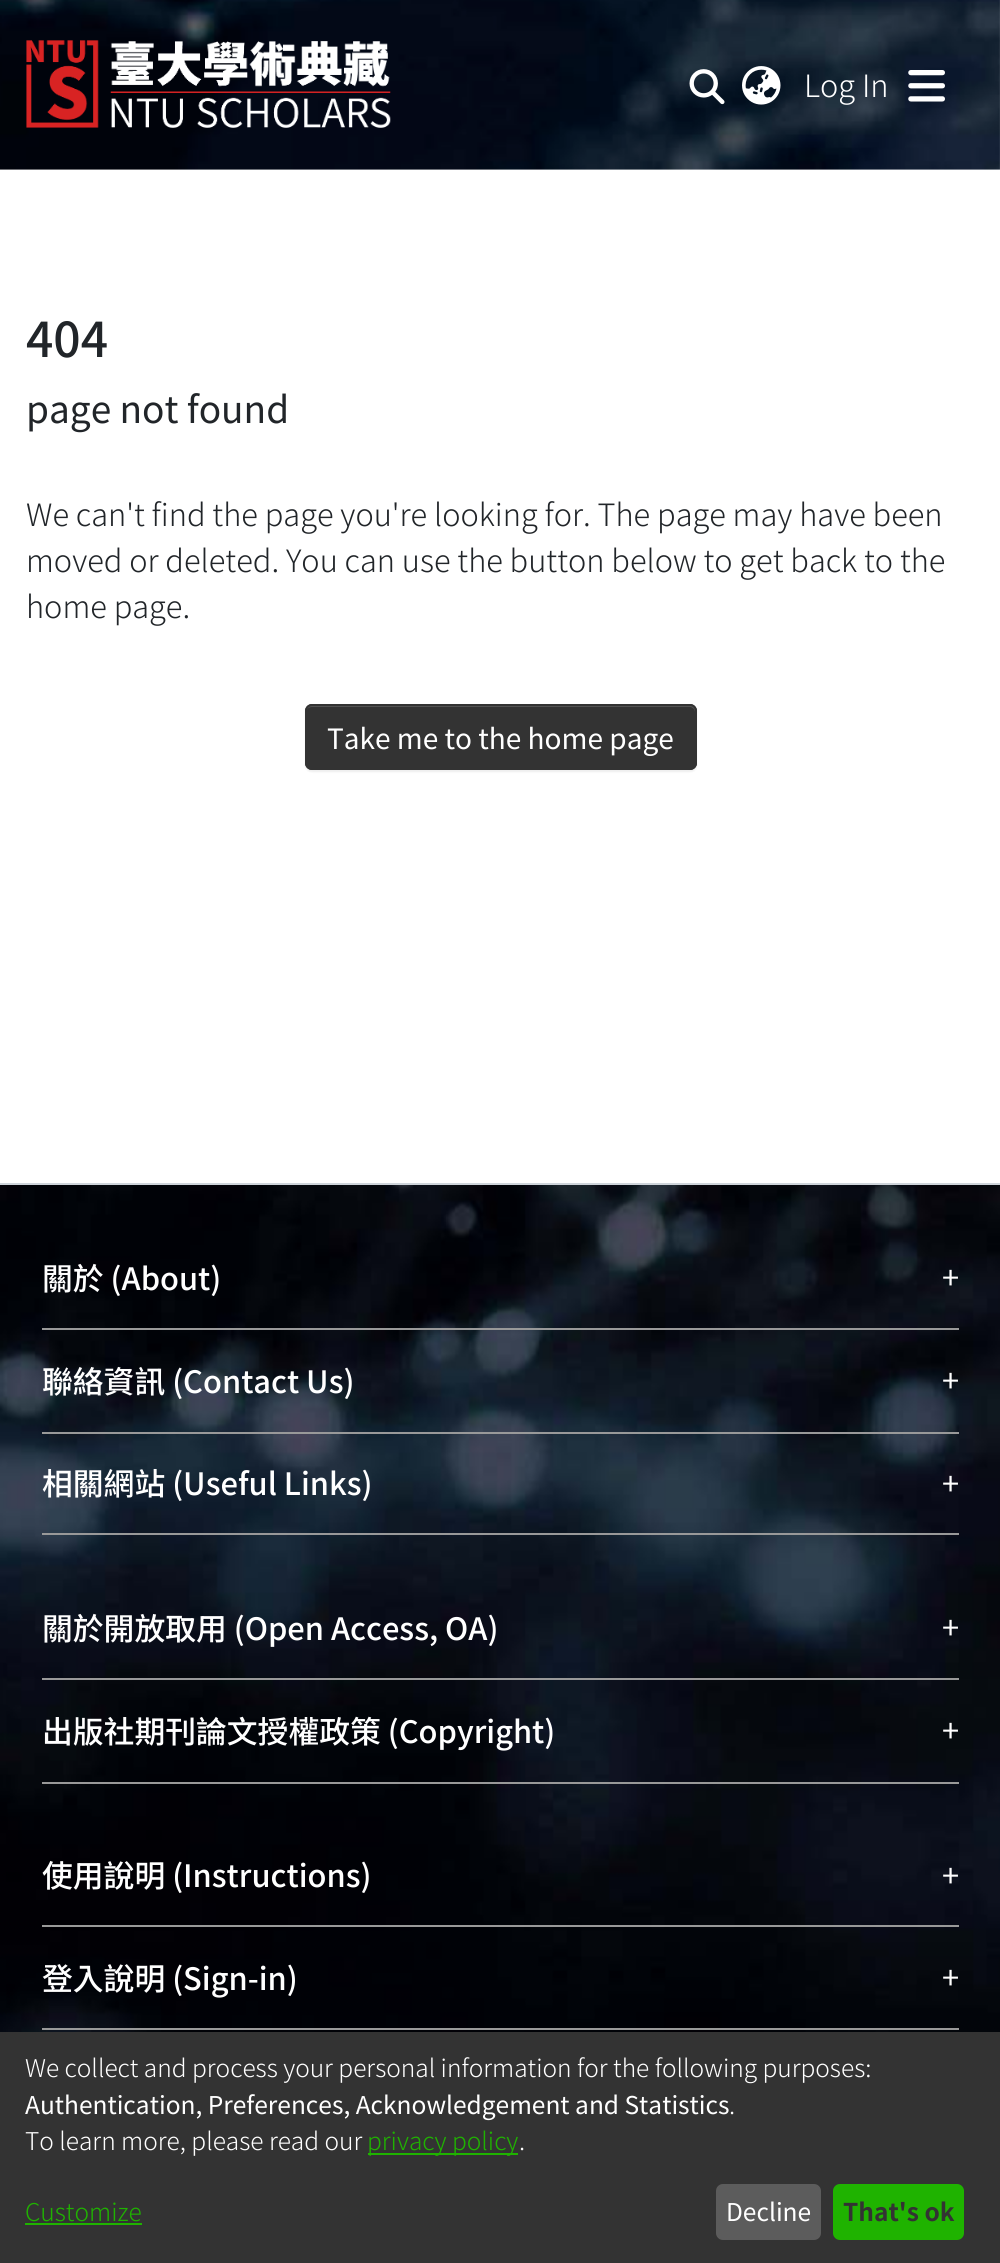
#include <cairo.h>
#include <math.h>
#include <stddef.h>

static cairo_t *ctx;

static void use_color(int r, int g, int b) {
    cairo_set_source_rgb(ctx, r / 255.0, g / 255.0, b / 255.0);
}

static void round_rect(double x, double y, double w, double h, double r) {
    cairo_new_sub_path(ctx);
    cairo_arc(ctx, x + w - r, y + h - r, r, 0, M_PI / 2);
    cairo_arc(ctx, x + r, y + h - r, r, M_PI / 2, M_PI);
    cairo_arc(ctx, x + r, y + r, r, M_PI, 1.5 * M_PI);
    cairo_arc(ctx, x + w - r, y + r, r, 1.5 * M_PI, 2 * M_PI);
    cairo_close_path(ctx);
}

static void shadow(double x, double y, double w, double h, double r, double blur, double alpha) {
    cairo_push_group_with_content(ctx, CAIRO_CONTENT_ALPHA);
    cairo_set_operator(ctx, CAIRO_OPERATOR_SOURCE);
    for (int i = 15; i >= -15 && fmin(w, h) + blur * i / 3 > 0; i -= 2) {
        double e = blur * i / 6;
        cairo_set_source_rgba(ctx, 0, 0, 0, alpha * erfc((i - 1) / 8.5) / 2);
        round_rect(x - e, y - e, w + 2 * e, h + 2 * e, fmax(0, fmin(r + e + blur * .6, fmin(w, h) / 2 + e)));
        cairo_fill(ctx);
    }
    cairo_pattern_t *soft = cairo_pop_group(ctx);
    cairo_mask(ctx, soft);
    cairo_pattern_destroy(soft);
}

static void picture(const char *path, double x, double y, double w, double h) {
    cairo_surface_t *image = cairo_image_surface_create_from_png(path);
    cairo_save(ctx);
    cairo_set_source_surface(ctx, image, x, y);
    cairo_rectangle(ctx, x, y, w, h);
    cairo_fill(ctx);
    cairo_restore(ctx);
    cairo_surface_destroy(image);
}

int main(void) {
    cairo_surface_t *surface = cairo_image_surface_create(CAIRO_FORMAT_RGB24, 1000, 2263);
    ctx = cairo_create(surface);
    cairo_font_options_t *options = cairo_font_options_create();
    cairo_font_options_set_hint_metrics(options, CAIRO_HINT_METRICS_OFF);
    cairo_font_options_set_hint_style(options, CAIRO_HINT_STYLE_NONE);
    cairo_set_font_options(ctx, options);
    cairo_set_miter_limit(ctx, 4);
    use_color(255, 255, 255);
    cairo_paint(ctx);
    picture("img1.png", 0, 0, 1000, 170);
    picture("img2.png", 26, 40, 365, 88);
    picture("img3.png", 689, 69, 36, 36);
    picture("img4.png", 742, 66, 39, 39);
    cairo_select_font_face(ctx, "Noto Sans TC Light", CAIRO_FONT_SLANT_NORMAL, CAIRO_FONT_WEIGHT_NORMAL);
    cairo_set_font_size(ctx, 30.8);
    use_color(255, 255, 255);
    cairo_move_to(ctx, 804, 97);
    cairo_show_text(ctx, "Log In");
    picture("img5.png", 908, 70, 37, 32);
    cairo_select_font_face(ctx, "Noto Sans TC Medium", CAIRO_FONT_SLANT_NORMAL, CAIRO_FONT_WEIGHT_NORMAL);
    cairo_set_font_size(ctx, 48);
    use_color(33, 37, 41);
    cairo_move_to(ctx, 26, 357);
    cairo_show_text(ctx, "404");
    cairo_select_font_face(ctx, "Noto Sans TC", CAIRO_FONT_SLANT_NORMAL, CAIRO_FONT_WEIGHT_NORMAL);
    cairo_set_font_size(ctx, 37);
    cairo_move_to(ctx, 26, 423);
    cairo_show_text(ctx, "page not found");
    cairo_select_font_face(ctx, "Noto Sans TC Light", CAIRO_FONT_SLANT_NORMAL, CAIRO_FONT_WEIGHT_NORMAL);
    cairo_set_font_size(ctx, 30.8);
    cairo_move_to(ctx, 26, 526);
    cairo_show_text(ctx, "We can't find the page you're looking for. The page may have been");
    cairo_move_to(ctx, 26, 572);
    cairo_show_text(ctx, "moved or deleted. You can use the button below to get back to the");
    cairo_move_to(ctx, 26, 618);
    cairo_show_text(ctx, "home page.");
    use_color(0, 0, 0);
    shadow(305, 705, 392, 67, 7, 1, 0.07);
    use_color(51, 51, 51);
    round_rect(305, 704, 392, 66, 7);
    cairo_fill(ctx);
    use_color(82, 82, 82);
    cairo_new_path(ctx);
    cairo_move_to(ctx, 312, 707);
    cairo_line_to(ctx, 690, 707);
    cairo_curve_to(ctx, 692, 707, 695, 709, 695, 712);
    cairo_line_to(ctx, 695, 710);
    cairo_curve_to(ctx, 695, 707, 693, 705, 690, 705);
    cairo_line_to(ctx, 311, 705);
    cairo_curve_to(ctx, 308, 705, 306, 707, 306, 710);
    cairo_line_to(ctx, 306, 712);
    cairo_curve_to(ctx, 306, 709, 309, 707, 312, 707);
    cairo_close_path(ctx);
    cairo_fill(ctx);
    round_rect(306, 705, 390, 64, 6);
    use_color(51, 51, 51);
    cairo_stroke(ctx);
    cairo_select_font_face(ctx, "Noto Sans TC", CAIRO_FONT_SLANT_NORMAL, CAIRO_FONT_WEIGHT_NORMAL);
    cairo_set_font_size(ctx, 28);
    use_color(255, 255, 255);
    cairo_move_to(ctx, 327, 749);
    cairo_show_text(ctx, "Take me to the home page");
    use_color(206, 212, 218);
    cairo_rectangle(ctx, 0, 1183, 1000, 2);
    cairo_fill(ctx);
    picture("img6.png", 0, 1185, 1000, 847);
    use_color(153, 153, 153);
    cairo_rectangle(ctx, 42, 1328, 917, 2);
    cairo_fill(ctx);
    cairo_select_font_face(ctx, "Noto Sans TC Medium", CAIRO_FONT_SLANT_NORMAL, CAIRO_FONT_WEIGHT_NORMAL);
    cairo_set_font_size(ctx, 30.8);
    use_color(255, 255, 255);
    cairo_move_to(ctx, 42, 1290);
    cairo_show_text(ctx, "關於 (About)");
    cairo_select_font_face(ctx, "Noto Sans TC", CAIRO_FONT_SLANT_NORMAL, CAIRO_FONT_WEIGHT_NORMAL);
    cairo_move_to(ctx, 942, 1289);
    cairo_show_text(ctx, "+");
    use_color(153, 153, 153);
    cairo_rectangle(ctx, 42, 1432, 917, 2);
    cairo_fill(ctx);
    cairo_select_font_face(ctx, "Noto Sans TC Medium", CAIRO_FONT_SLANT_NORMAL, CAIRO_FONT_WEIGHT_NORMAL);
    use_color(255, 255, 255);
    cairo_move_to(ctx, 42, 1393);
    cairo_show_text(ctx, "聯絡資訊 (Contact Us)");
    cairo_select_font_face(ctx, "Noto Sans TC", CAIRO_FONT_SLANT_NORMAL, CAIRO_FONT_WEIGHT_NORMAL);
    cairo_move_to(ctx, 942, 1392);
    cairo_show_text(ctx, "+");
    use_color(153, 153, 153);
    cairo_rectangle(ctx, 42, 1533, 917, 2);
    cairo_fill(ctx);
    cairo_select_font_face(ctx, "Noto Sans TC Medium", CAIRO_FONT_SLANT_NORMAL, CAIRO_FONT_WEIGHT_NORMAL);
    use_color(255, 255, 255);
    cairo_move_to(ctx, 42, 1495);
    cairo_show_text(ctx, "相關網站 (Useful Links)");
    cairo_select_font_face(ctx, "Noto Sans TC", CAIRO_FONT_SLANT_NORMAL, CAIRO_FONT_WEIGHT_NORMAL);
    cairo_move_to(ctx, 942, 1495);
    cairo_show_text(ctx, "+");
    use_color(153, 153, 153);
    cairo_rectangle(ctx, 42, 1678, 917, 2);
    cairo_fill(ctx);
    cairo_select_font_face(ctx, "Noto Sans TC Medium", CAIRO_FONT_SLANT_NORMAL, CAIRO_FONT_WEIGHT_NORMAL);
    use_color(255, 255, 255);
    cairo_move_to(ctx, 42, 1640);
    cairo_show_text(ctx, "關於開放取用 (Open Access, OA)");
    cairo_select_font_face(ctx, "Noto Sans TC", CAIRO_FONT_SLANT_NORMAL, CAIRO_FONT_WEIGHT_NORMAL);
    cairo_move_to(ctx, 942, 1639);
    cairo_show_text(ctx, "+");
    use_color(153, 153, 153);
    cairo_rectangle(ctx, 42, 1782, 917, 2);
    cairo_fill(ctx);
    cairo_select_font_face(ctx, "Noto Sans TC Medium", CAIRO_FONT_SLANT_NORMAL, CAIRO_FONT_WEIGHT_NORMAL);
    use_color(255, 255, 255);
    cairo_move_to(ctx, 42, 1743);
    cairo_show_text(ctx, "出版社期刊論文授權政策 (Copyright)");
    cairo_select_font_face(ctx, "Noto Sans TC", CAIRO_FONT_SLANT_NORMAL, CAIRO_FONT_WEIGHT_NORMAL);
    cairo_move_to(ctx, 942, 1742);
    cairo_show_text(ctx, "+");
    use_color(153, 153, 153);
    cairo_rectangle(ctx, 42, 1925, 917, 2);
    cairo_fill(ctx);
    cairo_select_font_face(ctx, "Noto Sans TC Medium", CAIRO_FONT_SLANT_NORMAL, CAIRO_FONT_WEIGHT_NORMAL);
    use_color(255, 255, 255);
    cairo_move_to(ctx, 42, 1887);
    cairo_show_text(ctx, "使用說明 (Instructions)");
    cairo_select_font_face(ctx, "Noto Sans TC", CAIRO_FONT_SLANT_NORMAL, CAIRO_FONT_WEIGHT_NORMAL);
    cairo_move_to(ctx, 942, 1887);
    cairo_show_text(ctx, "+");
    use_color(153, 153, 153);
    cairo_rectangle(ctx, 42, 2028, 917, 2);
    cairo_fill(ctx);
    cairo_select_font_face(ctx, "Noto Sans TC Medium", CAIRO_FONT_SLANT_NORMAL, CAIRO_FONT_WEIGHT_NORMAL);
    use_color(255, 255, 255);
    cairo_move_to(ctx, 42, 1990);
    cairo_show_text(ctx, "登入說明 (Sign-in)");
    cairo_select_font_face(ctx, "Noto Sans TC", CAIRO_FONT_SLANT_NORMAL, CAIRO_FONT_WEIGHT_NORMAL);
    cairo_move_to(ctx, 942, 1989);
    cairo_show_text(ctx, "+");
    use_color(51, 51, 51);
    cairo_rectangle(ctx, 0, 2032, 1000, 231);
    cairo_fill(ctx);
    cairo_select_font_face(ctx, "Noto Sans TC Light", CAIRO_FONT_SLANT_NORMAL, CAIRO_FONT_WEIGHT_NORMAL);
    cairo_set_font_size(ctx, 24.5);
    use_color(255, 255, 255);
    cairo_move_to(ctx, 25, 2077);
    cairo_show_text(ctx, "We collect and process your personal information for the following purposes:");
    cairo_select_font_face(ctx, "Noto Sans TC", CAIRO_FONT_SLANT_NORMAL, CAIRO_FONT_WEIGHT_NORMAL);
    cairo_move_to(ctx, 25, 2114);
    cairo_show_text(ctx, "Authentication, Preferences, Acknowledgement and Statistics");
    cairo_select_font_face(ctx, "Noto Sans TC Light", CAIRO_FONT_SLANT_NORMAL, CAIRO_FONT_WEIGHT_NORMAL);
    cairo_move_to(ctx, 729, 2114);
    cairo_show_text(ctx, ".");
    cairo_move_to(ctx, 25, 2150);
    cairo_show_text(ctx, "To learn more, please read our");
    use_color(31, 179, 0);
    cairo_rectangle(ctx, 368, 2153, 150, 2);
    cairo_fill(ctx);
    cairo_move_to(ctx, 367, 2150);
    cairo_show_text(ctx, "privacy policy");
    use_color(255, 255, 255);
    cairo_move_to(ctx, 519, 2150);
    cairo_show_text(ctx, ".");
    use_color(31, 179, 0);
    cairo_move_to(ctx, 25, 2221);
    cairo_show_text(ctx, "Customize");
    cairo_rectangle(ctx, 25, 2223, 117, 2);
    cairo_fill(ctx);
    use_color(92, 92, 92);
    round_rect(716, 2184, 105, 56, 7);
    cairo_fill(ctx);
    cairo_select_font_face(ctx, "Noto Sans TC", CAIRO_FONT_SLANT_NORMAL, CAIRO_FONT_WEIGHT_NORMAL);
    use_color(255, 255, 255);
    cairo_move_to(ctx, 726, 2221);
    cairo_show_text(ctx, "Decline");
    use_color(31, 179, 0);
    round_rect(833, 2184, 131, 56, 7);
    cairo_fill(ctx);
    cairo_select_font_face(ctx, "Noto Sans TC", CAIRO_FONT_SLANT_NORMAL, CAIRO_FONT_WEIGHT_BOLD);
    use_color(51, 51, 51);
    cairo_move_to(ctx, 843, 2221);
    cairo_show_text(ctx, "That's ok");
    cairo_surface_write_to_png(surface, "result.png");
    cairo_font_options_destroy(options);
    cairo_destroy(ctx);
    cairo_surface_destroy(surface);
    return 0;
}
